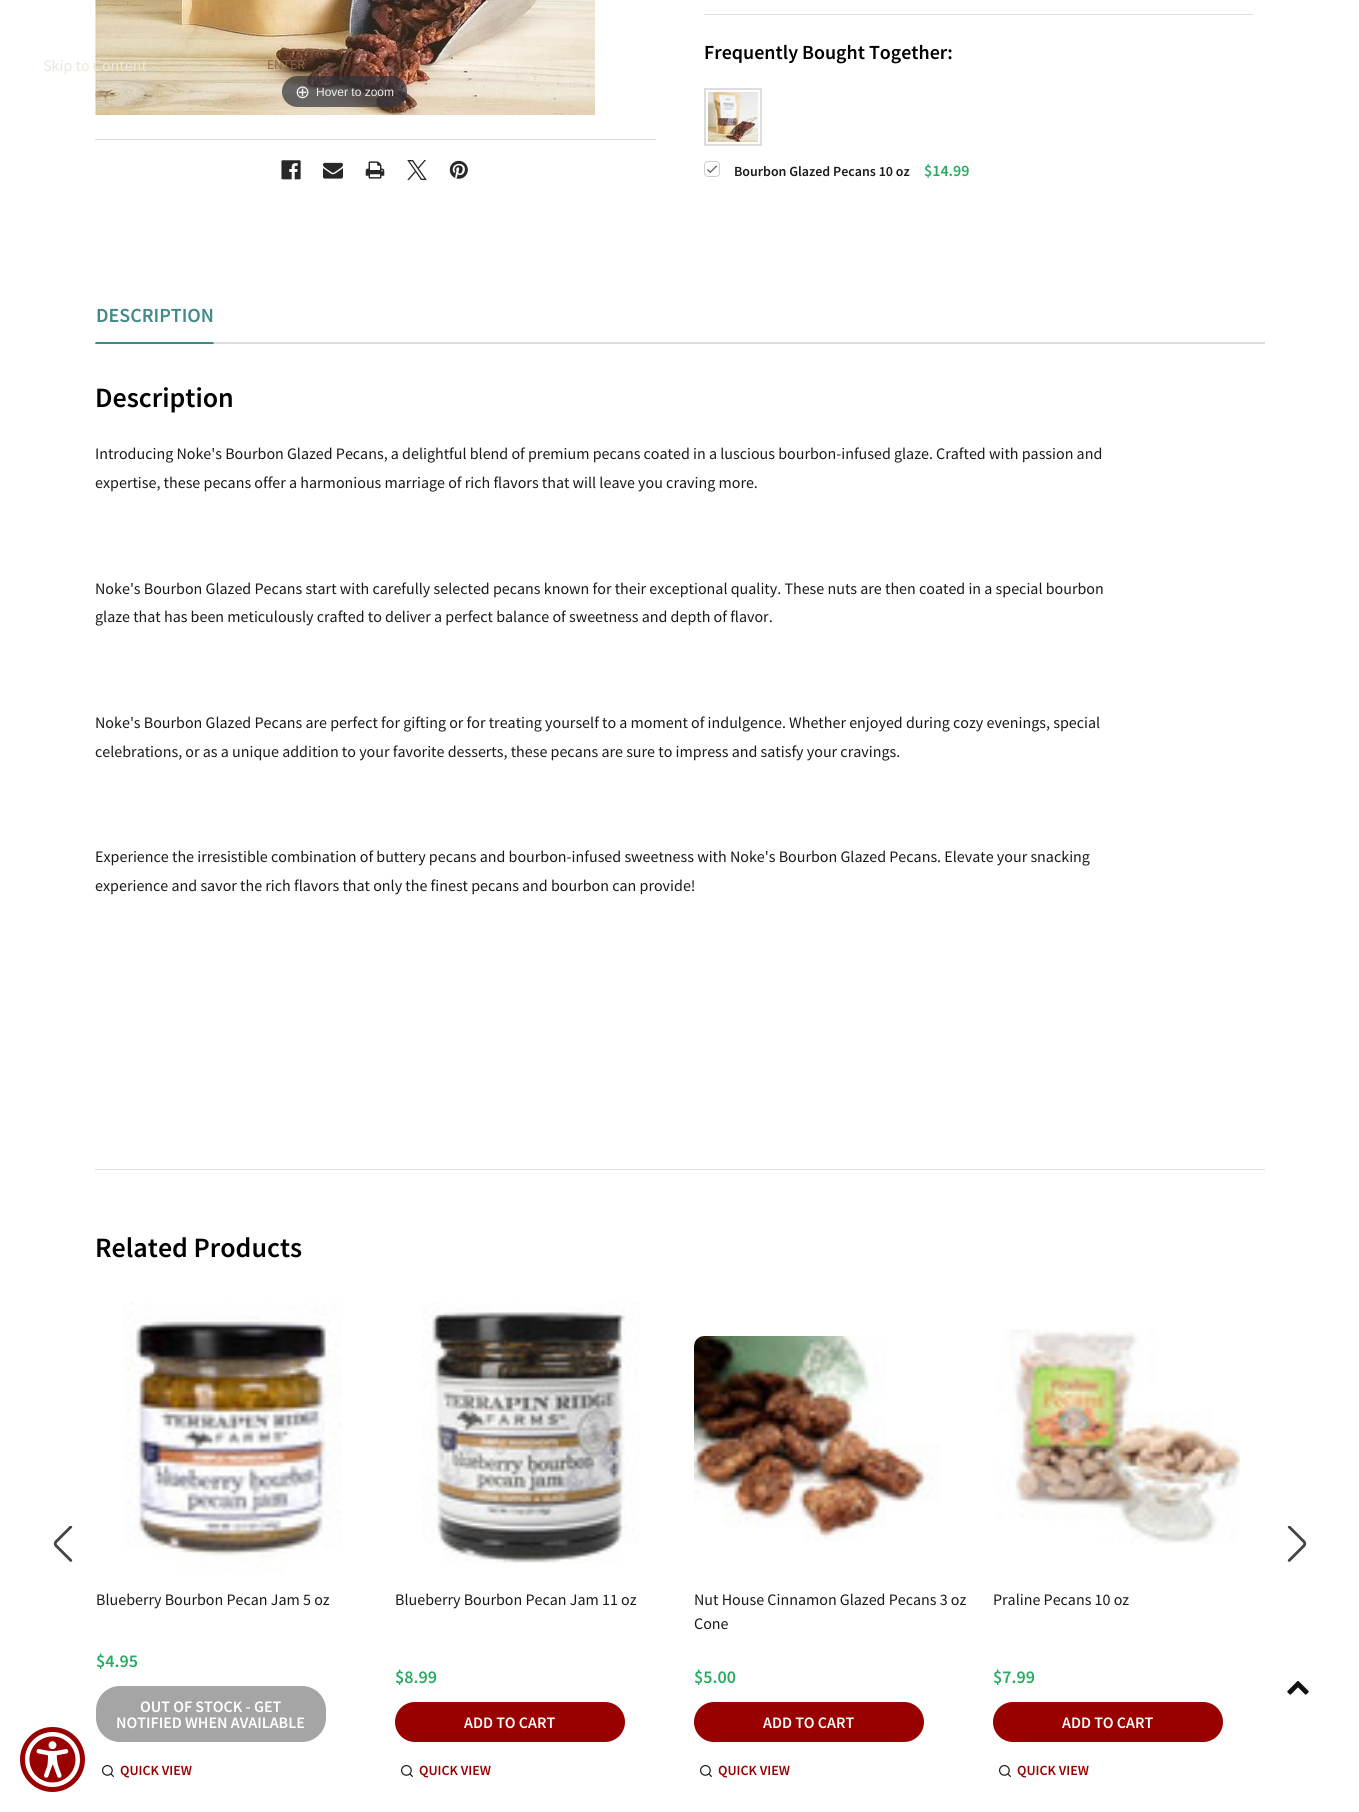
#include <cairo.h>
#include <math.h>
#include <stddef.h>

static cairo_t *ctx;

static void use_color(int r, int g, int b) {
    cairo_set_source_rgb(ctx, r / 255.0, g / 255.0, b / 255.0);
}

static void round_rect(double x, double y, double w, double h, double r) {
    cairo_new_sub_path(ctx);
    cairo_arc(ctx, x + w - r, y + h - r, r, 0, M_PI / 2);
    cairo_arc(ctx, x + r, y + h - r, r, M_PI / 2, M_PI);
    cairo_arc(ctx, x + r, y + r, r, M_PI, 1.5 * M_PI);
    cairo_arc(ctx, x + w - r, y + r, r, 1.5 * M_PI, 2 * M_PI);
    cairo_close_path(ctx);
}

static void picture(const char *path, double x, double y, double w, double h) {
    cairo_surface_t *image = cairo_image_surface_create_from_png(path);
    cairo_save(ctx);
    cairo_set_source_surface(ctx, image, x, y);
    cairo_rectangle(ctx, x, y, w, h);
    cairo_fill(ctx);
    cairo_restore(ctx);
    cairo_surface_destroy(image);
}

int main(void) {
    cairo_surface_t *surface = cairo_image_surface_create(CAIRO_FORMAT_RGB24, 1359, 1812);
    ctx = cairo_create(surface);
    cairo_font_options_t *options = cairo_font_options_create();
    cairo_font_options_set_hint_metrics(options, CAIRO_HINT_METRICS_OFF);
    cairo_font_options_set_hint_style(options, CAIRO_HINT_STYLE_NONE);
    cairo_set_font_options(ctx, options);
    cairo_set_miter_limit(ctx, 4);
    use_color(255, 255, 255);
    cairo_paint(ctx);
    picture("img1.png", 95, 0, 500, 115);
    cairo_set_source_rgba(ctx, 0.192, 0.2, 0.239, 0.7);
    round_rect(282, 76, 125, 31, 15.5);
    cairo_fill(ctx);
    cairo_select_font_face(ctx, "DejaVu Sans", CAIRO_FONT_SLANT_NORMAL, CAIRO_FONT_WEIGHT_NORMAL);
    cairo_set_font_size(ctx, 18);
    use_color(238, 238, 238);
    cairo_move_to(ctx, 295, 98);
    cairo_show_text(ctx, "⊕");
    cairo_select_font_face(ctx, "Liberation Sans", CAIRO_FONT_SLANT_NORMAL, CAIRO_FONT_WEIGHT_NORMAL);
    cairo_set_font_size(ctx, 12);
    cairo_move_to(ctx, 316, 96);
    cairo_show_text(ctx, "Hover to zoom");
    use_color(221, 221, 221);
    cairo_rectangle(ctx, 95, 139, 561, 1);
    cairo_fill(ctx);
    picture("img2.png", 281, 160, 20, 20);
    picture("img3.png", 323, 162, 20, 17);
    picture("img4.png", 365, 161, 20, 18);
    picture("img5.png", 407, 160, 20, 20);
    picture("img6.png", 449, 160, 19, 19);
    cairo_rectangle(ctx, 704, 14, 549, 1);
    cairo_fill(ctx);
    cairo_select_font_face(ctx, "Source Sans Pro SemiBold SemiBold", CAIRO_FONT_SLANT_NORMAL, CAIRO_FONT_WEIGHT_NORMAL);
    cairo_set_font_size(ctx, 20);
    use_color(0, 0, 0);
    cairo_move_to(ctx, 704, 59);
    cairo_show_text(ctx, "Frequently Bought Together:");
    cairo_rectangle(ctx, 705, 89, 56, 56);
    use_color(221, 221, 221);
    cairo_stroke(ctx);
    picture("img7.png", 708, 92, 50, 50);
    round_rect(704.5, 161.5, 15, 15, 3.5);
    use_color(204, 204, 204);
    cairo_set_line_width(ctx, 1);
    cairo_stroke(ctx);
    cairo_set_font_size(ctx, 16);
    use_color(40, 170, 96);
    cairo_move_to(ctx, 924, 176);
    cairo_show_text(ctx, "$14.99");
    picture("img8.png", 707, 165, 11, 8);
    cairo_set_font_size(ctx, 14);
    use_color(26, 26, 26);
    cairo_move_to(ctx, 734, 176);
    cairo_show_text(ctx, "Bourbon Glazed Pecans 10 oz");
    use_color(221, 221, 221);
    cairo_rectangle(ctx, 95, 342, 1170, 2);
    cairo_fill(ctx);
    use_color(64, 139, 135);
    cairo_new_path(ctx);
    cairo_move_to(ctx, 214, 344);
    cairo_line_to(ctx, 213, 342);
    cairo_line_to(ctx, 96, 342);
    cairo_line_to(ctx, 95, 344);
    cairo_close_path(ctx);
    cairo_fill(ctx);
    cairo_set_font_size(ctx, 20);
    cairo_move_to(ctx, 96, 322);
    cairo_show_text(ctx, "DESCRIPTION");
    cairo_set_font_size(ctx, 28);
    use_color(0, 0, 0);
    cairo_move_to(ctx, 95, 407);
    cairo_show_text(ctx, "Description");
    cairo_select_font_face(ctx, "Source Sans Pro", CAIRO_FONT_SLANT_NORMAL, CAIRO_FONT_WEIGHT_NORMAL);
    cairo_set_font_size(ctx, 16);
    use_color(26, 26, 26);
    cairo_move_to(ctx, 95, 459);
    cairo_show_text(ctx, "Introducing Noke's Bourbon Glazed Pecans, a delightful blend of premium pecans coated in a luscious bourbon-infused glaze. Crafted with passion and");
    cairo_move_to(ctx, 95, 488);
    cairo_show_text(ctx, "expertise, these pecans offer a harmonious marriage of rich flavors that will leave you craving more.");
    cairo_move_to(ctx, 95, 594);
    cairo_show_text(ctx, "Noke's Bourbon Glazed Pecans start with carefully selected pecans known for their exceptional quality. These nuts are then coated in a special bourbon");
    cairo_move_to(ctx, 95, 622);
    cairo_show_text(ctx, "glaze that has been meticulously crafted to deliver a perfect balance of sweetness and depth of flavor.");
    cairo_move_to(ctx, 95, 728);
    cairo_show_text(ctx, "Noke's Bourbon Glazed Pecans are perfect for gifting or for treating yourself to a moment of indulgence. Whether enjoyed during cozy evenings, special");
    cairo_move_to(ctx, 95, 757);
    cairo_show_text(ctx, "celebrations, or as a unique addition to your favorite desserts, these pecans are sure to impress and satisfy your cravings.");
    cairo_move_to(ctx, 95, 862);
    cairo_show_text(ctx, "Experience the irresistible combination of buttery pecans and bourbon-infused sweetness with Noke's Bourbon Glazed Pecans. Elevate your snacking");
    cairo_move_to(ctx, 95, 891);
    cairo_show_text(ctx, "experience and savor the rich flavors that only the finest pecans and bourbon can provide!");
    use_color(221, 221, 221);
    cairo_rectangle(ctx, 95, 1169, 1170, 1);
    cairo_fill(ctx);
    cairo_select_font_face(ctx, "Source Sans Pro SemiBold SemiBold", CAIRO_FONT_SLANT_NORMAL, CAIRO_FONT_WEIGHT_NORMAL);
    cairo_set_font_size(ctx, 28);
    use_color(0, 0, 0);
    cairo_move_to(ctx, 95, 1257);
    cairo_show_text(ctx, "Related Products");
    picture("img9.png", 53, 1526, 20, 36);
    picture("img10.png", 1287, 1526, 20, 36);
    picture("img11.png", 123, 1302, 219, 273);
    cairo_select_font_face(ctx, "Source Sans Pro", CAIRO_FONT_SLANT_NORMAL, CAIRO_FONT_WEIGHT_NORMAL);
    cairo_set_font_size(ctx, 16);
    use_color(26, 26, 26);
    cairo_move_to(ctx, 96, 1605);
    cairo_show_text(ctx, "Blueberry Bourbon Pecan Jam 5 oz");
    cairo_select_font_face(ctx, "Source Sans Pro SemiBold SemiBold", CAIRO_FONT_SLANT_NORMAL, CAIRO_FONT_WEIGHT_NORMAL);
    cairo_set_font_size(ctx, 18);
    use_color(40, 170, 96);
    cairo_move_to(ctx, 96, 1667);
    cairo_show_text(ctx, "$4.95");
    use_color(165, 165, 165);
    round_rect(96, 1686, 230, 56, 24);
    cairo_fill(ctx);
    cairo_set_font_size(ctx, 16);
    use_color(255, 255, 255);
    cairo_move_to(ctx, 140, 1712);
    cairo_show_text(ctx, "OUT OF STOCK - GET");
    cairo_move_to(ctx, 116, 1728);
    cairo_show_text(ctx, "NOTIFIED WHEN AVAILABLE");
    picture("img12.png", 102, 1765, 12, 12);
    cairo_set_font_size(ctx, 14);
    use_color(153, 0, 0);
    cairo_move_to(ctx, 120, 1775);
    cairo_show_text(ctx, "QUICK VIEW");
    picture("img13.png", 422, 1302, 218, 262);
    cairo_select_font_face(ctx, "Source Sans Pro", CAIRO_FONT_SLANT_NORMAL, CAIRO_FONT_WEIGHT_NORMAL);
    cairo_set_font_size(ctx, 16);
    use_color(26, 26, 26);
    cairo_move_to(ctx, 395, 1605);
    cairo_show_text(ctx, "Blueberry Bourbon Pecan Jam 11 oz");
    cairo_select_font_face(ctx, "Source Sans Pro SemiBold SemiBold", CAIRO_FONT_SLANT_NORMAL, CAIRO_FONT_WEIGHT_NORMAL);
    cairo_set_font_size(ctx, 18);
    use_color(40, 170, 96);
    cairo_move_to(ctx, 395, 1683);
    cairo_show_text(ctx, "$8.99");
    use_color(153, 0, 0);
    round_rect(395, 1702, 230, 40, 20);
    cairo_fill(ctx);
    cairo_set_font_size(ctx, 16);
    use_color(255, 255, 255);
    cairo_move_to(ctx, 464, 1728);
    cairo_show_text(ctx, "ADD TO CART");
    picture("img12.png", 401, 1765, 12, 12);
    cairo_set_font_size(ctx, 14);
    use_color(153, 0, 0);
    cairo_move_to(ctx, 419, 1775);
    cairo_show_text(ctx, "QUICK VIEW");
    picture("img14.png", 694, 1336, 246, 205);
    cairo_select_font_face(ctx, "Source Sans Pro", CAIRO_FONT_SLANT_NORMAL, CAIRO_FONT_WEIGHT_NORMAL);
    cairo_set_font_size(ctx, 16);
    use_color(26, 26, 26);
    cairo_move_to(ctx, 694, 1605);
    cairo_show_text(ctx, "Nut House Cinnamon Glazed Pecans 3 oz");
    cairo_move_to(ctx, 694, 1629);
    cairo_show_text(ctx, "Cone");
    cairo_select_font_face(ctx, "Source Sans Pro SemiBold SemiBold", CAIRO_FONT_SLANT_NORMAL, CAIRO_FONT_WEIGHT_NORMAL);
    cairo_set_font_size(ctx, 18);
    use_color(40, 170, 96);
    cairo_move_to(ctx, 694, 1683);
    cairo_show_text(ctx, "$5.00");
    use_color(153, 0, 0);
    round_rect(694, 1702, 230, 40, 20);
    cairo_fill(ctx);
    cairo_set_font_size(ctx, 16);
    use_color(255, 255, 255);
    cairo_move_to(ctx, 763, 1728);
    cairo_show_text(ctx, "ADD TO CART");
    picture("img12.png", 700, 1765, 12, 12);
    cairo_set_font_size(ctx, 14);
    use_color(153, 0, 0);
    cairo_move_to(ctx, 718, 1775);
    cairo_show_text(ctx, "QUICK VIEW");
    picture("img15.png", 997, 1329, 243, 215);
    cairo_select_font_face(ctx, "Source Sans Pro", CAIRO_FONT_SLANT_NORMAL, CAIRO_FONT_WEIGHT_NORMAL);
    cairo_set_font_size(ctx, 16);
    use_color(26, 26, 26);
    cairo_move_to(ctx, 993, 1605);
    cairo_show_text(ctx, "Praline Pecans 10 oz");
    cairo_select_font_face(ctx, "Source Sans Pro SemiBold SemiBold", CAIRO_FONT_SLANT_NORMAL, CAIRO_FONT_WEIGHT_NORMAL);
    cairo_set_font_size(ctx, 18);
    use_color(40, 170, 96);
    cairo_move_to(ctx, 993, 1683);
    cairo_show_text(ctx, "$7.99");
    use_color(153, 0, 0);
    round_rect(993, 1702, 230, 40, 20);
    cairo_fill(ctx);
    cairo_set_font_size(ctx, 16);
    use_color(255, 255, 255);
    cairo_move_to(ctx, 1062, 1728);
    cairo_show_text(ctx, "ADD TO CART");
    picture("img12.png", 999, 1765, 12, 12);
    cairo_set_font_size(ctx, 14);
    use_color(153, 0, 0);
    cairo_move_to(ctx, 1017, 1775);
    cairo_show_text(ctx, "QUICK VIEW");
    cairo_select_font_face(ctx, "Source Sans Pro", CAIRO_FONT_SLANT_NORMAL, CAIRO_FONT_WEIGHT_NORMAL);
    cairo_set_font_size(ctx, 16);
    use_color(238, 231, 216);
    cairo_move_to(ctx, 43, 71);
    cairo_show_text(ctx, "Skip to Content");
    cairo_set_font_size(ctx, 13.5);
    use_color(134, 104, 75);
    cairo_move_to(ctx, 267, 69);
    cairo_show_text(ctx, "ENTER");
    use_color(153, 0, 0);
    cairo_new_path(ctx);
    cairo_arc(ctx, 52.5, 1759.5, 32.5, 0, 2 * M_PI);
    cairo_fill(ctx);
    picture("img16.png", 25, 1732, 55, 55);
    picture("img17.png", 1287, 1680, 22, 15);
    cairo_surface_write_to_png(surface, "result.png");
    cairo_font_options_destroy(options);
    cairo_destroy(ctx);
    cairo_surface_destroy(surface);
    return 0;
}
